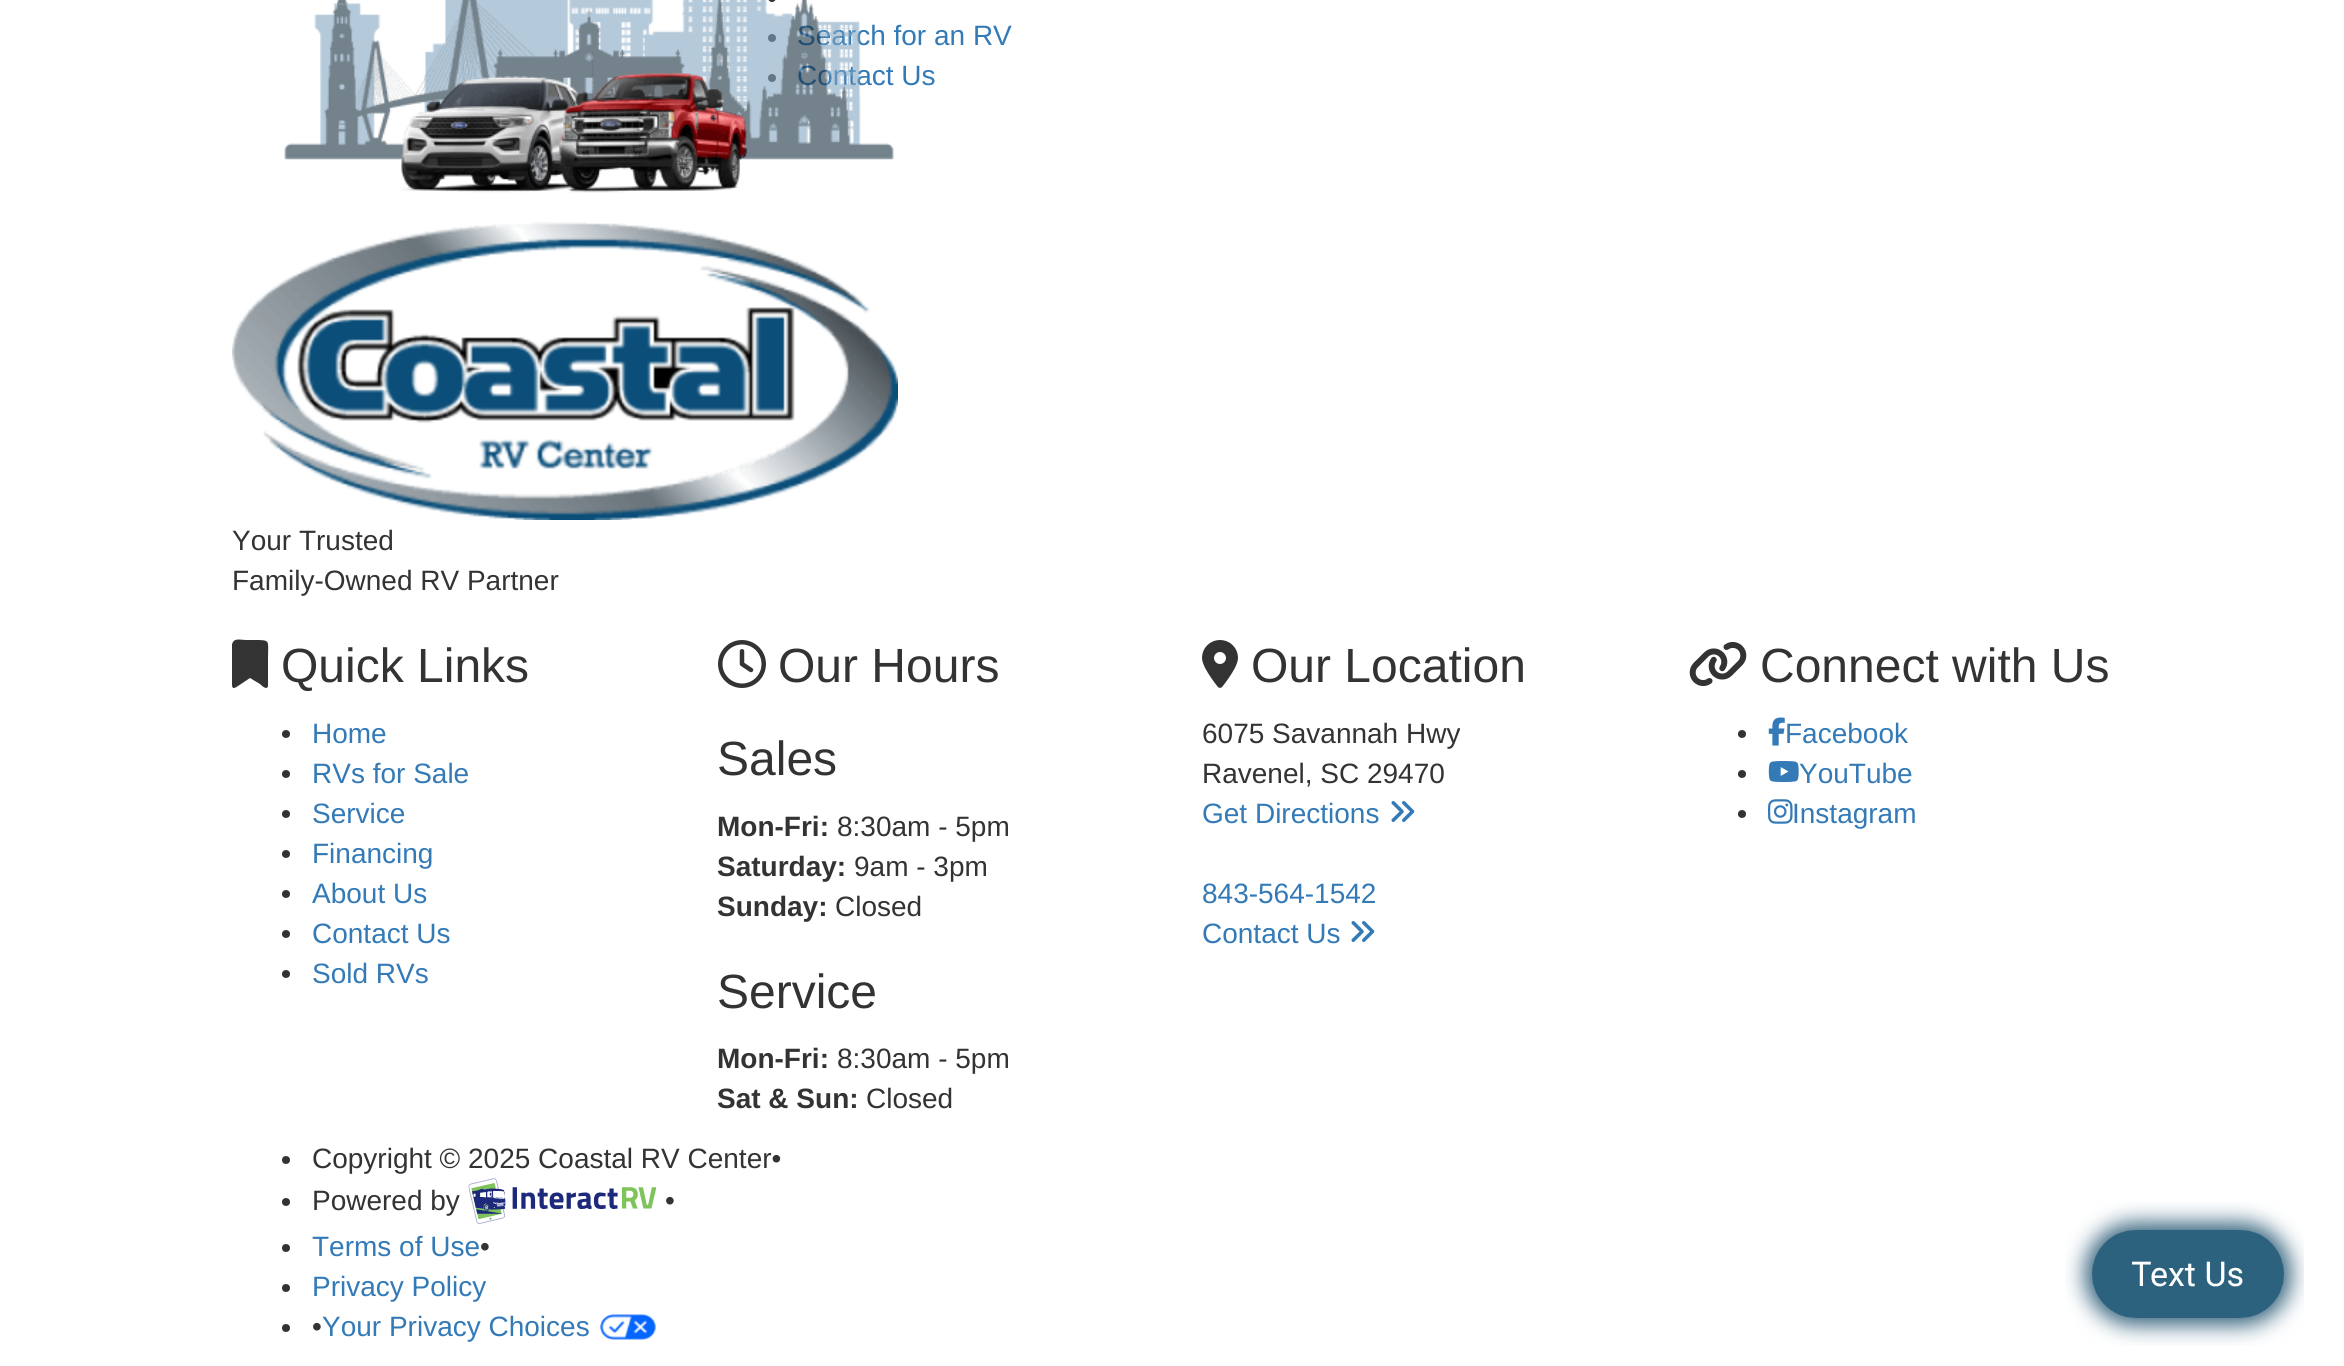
#include <cairo.h>
#include <math.h>
#include <stddef.h>

static cairo_t *ctx;

static void use_color(int r, int g, int b) {
    cairo_set_source_rgb(ctx, r / 255.0, g / 255.0, b / 255.0);
}

static void round_rect(double x, double y, double w, double h, double r) {
    cairo_new_sub_path(ctx);
    cairo_arc(ctx, x + w - r, y + h - r, r, 0, M_PI / 2);
    cairo_arc(ctx, x + r, y + h - r, r, M_PI / 2, M_PI);
    cairo_arc(ctx, x + r, y + r, r, M_PI, 1.5 * M_PI);
    cairo_arc(ctx, x + w - r, y + r, r, 1.5 * M_PI, 2 * M_PI);
    cairo_close_path(ctx);
}

static void picture(const char *path, double x, double y, double w, double h) {
    cairo_surface_t *image = cairo_image_surface_create_from_png(path);
    cairo_save(ctx);
    cairo_set_source_surface(ctx, image, x, y);
    cairo_rectangle(ctx, x, y, w, h);
    cairo_fill(ctx);
    cairo_restore(ctx);
    cairo_surface_destroy(image);
}

int main(void) {
    cairo_surface_t *surface = cairo_image_surface_create(CAIRO_FORMAT_RGB24, 2344, 1366);
    ctx = cairo_create(surface);
    cairo_font_options_t *options = cairo_font_options_create();
    cairo_font_options_set_hint_metrics(options, CAIRO_HINT_METRICS_OFF);
    cairo_font_options_set_hint_style(options, CAIRO_HINT_STYLE_NONE);
    cairo_set_font_options(ctx, options);
    cairo_set_miter_limit(ctx, 4);
    use_color(255, 255, 255);
    cairo_paint(ctx);
    use_color(51, 51, 51);
    round_rect(768, -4, 8, 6, 4);
    cairo_fill(ctx);
    cairo_arc(ctx, 772, 38, 4, 0, 2 * M_PI);
    cairo_fill(ctx);
    cairo_select_font_face(ctx, "Liberation Sans", CAIRO_FONT_SLANT_NORMAL, CAIRO_FONT_WEIGHT_NORMAL);
    cairo_set_font_size(ctx, 28);
    use_color(51, 122, 183);
    cairo_move_to(ctx, 797, 45);
    cairo_show_text(ctx, "Search for an RV");
    use_color(51, 51, 51);
    cairo_new_path(ctx);
    cairo_arc(ctx, 772, 78, 4, 0, 2 * M_PI);
    cairo_fill(ctx);
    use_color(51, 122, 183);
    cairo_move_to(ctx, 797, 85);
    cairo_show_text(ctx, "Contact Us");
    picture("img1.png", 284, 0, 610, 193);
    picture("img2.png", 232, 222, 666, 298);
    use_color(51, 51, 51);
    cairo_move_to(ctx, 232, 550);
    cairo_show_text(ctx, "Your Trusted");
    cairo_move_to(ctx, 232, 590);
    cairo_show_text(ctx, "Family-Owned RV Partner");
    cairo_new_path(ctx);
    cairo_move_to(ctx, 232, 644);
    cairo_line_to(ctx, 232, 686);
    cairo_line_to(ctx, 232, 644);
    cairo_line_to(ctx, 232, 679);
    cairo_curve_to(ctx, 232, 686, 231, 691, 238, 686);
    cairo_line_to(ctx, 250, 678);
    cairo_line_to(ctx, 260, 684);
    cairo_curve_to(ctx, 261, 685, 267, 691, 268, 686);
    cairo_line_to(ctx, 268, 658);
    cairo_curve_to(ctx, 268, 640, 271, 640, 254, 640);
    cairo_line_to(ctx, 246, 640);
    cairo_curve_to(ctx, 242, 640, 235, 638, 233, 642);
    cairo_close_path(ctx);
    cairo_fill(ctx);
    cairo_set_font_size(ctx, 48);
    cairo_move_to(ctx, 281, 682);
    cairo_show_text(ctx, "Quick Links");
    cairo_new_path(ctx);
    cairo_arc(ctx, 286, 734, 4, 0, 2 * M_PI);
    cairo_fill(ctx);
    cairo_set_font_size(ctx, 28);
    use_color(51, 122, 183);
    cairo_move_to(ctx, 312, 743);
    cairo_show_text(ctx, "Home");
    use_color(51, 51, 51);
    cairo_new_path(ctx);
    cairo_arc(ctx, 286, 774, 4, 0, 2 * M_PI);
    cairo_fill(ctx);
    use_color(51, 122, 183);
    cairo_move_to(ctx, 312, 783);
    cairo_show_text(ctx, "RVs for Sale");
    use_color(51, 51, 51);
    cairo_new_path(ctx);
    cairo_arc(ctx, 286, 814, 4, 0, 2 * M_PI);
    cairo_fill(ctx);
    use_color(51, 122, 183);
    cairo_move_to(ctx, 312, 823);
    cairo_show_text(ctx, "Service");
    use_color(51, 51, 51);
    cairo_new_path(ctx);
    cairo_arc(ctx, 286, 854, 4, 0, 2 * M_PI);
    cairo_fill(ctx);
    use_color(51, 122, 183);
    cairo_move_to(ctx, 312, 863);
    cairo_show_text(ctx, "Financing");
    use_color(51, 51, 51);
    cairo_new_path(ctx);
    cairo_arc(ctx, 286, 894, 4, 0, 2 * M_PI);
    cairo_fill(ctx);
    use_color(51, 122, 183);
    cairo_move_to(ctx, 312, 903);
    cairo_show_text(ctx, "About Us");
    use_color(51, 51, 51);
    cairo_new_path(ctx);
    cairo_arc(ctx, 286, 934, 4, 0, 2 * M_PI);
    cairo_fill(ctx);
    use_color(51, 122, 183);
    cairo_move_to(ctx, 312, 943);
    cairo_show_text(ctx, "Contact Us");
    use_color(51, 51, 51);
    cairo_new_path(ctx);
    cairo_arc(ctx, 286, 974, 4, 0, 2 * M_PI);
    cairo_fill(ctx);
    use_color(51, 122, 183);
    cairo_move_to(ctx, 312, 983);
    cairo_show_text(ctx, "Sold RVs");
    picture("img3.png", 718, 640, 48, 48);
    cairo_set_font_size(ctx, 48);
    use_color(51, 51, 51);
    cairo_move_to(ctx, 778, 682);
    cairo_show_text(ctx, "Our Hours");
    cairo_move_to(ctx, 717, 775);
    cairo_show_text(ctx, "Sales");
    cairo_select_font_face(ctx, "Liberation Sans", CAIRO_FONT_SLANT_NORMAL, CAIRO_FONT_WEIGHT_BOLD);
    cairo_set_font_size(ctx, 28);
    cairo_move_to(ctx, 717, 836);
    cairo_show_text(ctx, "Mon-Fri:");
    cairo_select_font_face(ctx, "Liberation Sans", CAIRO_FONT_SLANT_NORMAL, CAIRO_FONT_WEIGHT_NORMAL);
    cairo_move_to(ctx, 837, 836);
    cairo_show_text(ctx, "8:30am - 5pm");
    cairo_select_font_face(ctx, "Liberation Sans", CAIRO_FONT_SLANT_NORMAL, CAIRO_FONT_WEIGHT_BOLD);
    cairo_move_to(ctx, 717, 876);
    cairo_show_text(ctx, "Saturday:");
    cairo_select_font_face(ctx, "Liberation Sans", CAIRO_FONT_SLANT_NORMAL, CAIRO_FONT_WEIGHT_NORMAL);
    cairo_move_to(ctx, 854, 876);
    cairo_show_text(ctx, "9am - 3pm");
    cairo_select_font_face(ctx, "Liberation Sans", CAIRO_FONT_SLANT_NORMAL, CAIRO_FONT_WEIGHT_BOLD);
    cairo_move_to(ctx, 717, 916);
    cairo_show_text(ctx, "Sunday:");
    cairo_select_font_face(ctx, "Liberation Sans", CAIRO_FONT_SLANT_NORMAL, CAIRO_FONT_WEIGHT_NORMAL);
    cairo_move_to(ctx, 835, 916);
    cairo_show_text(ctx, "Closed");
    cairo_set_font_size(ctx, 48);
    cairo_move_to(ctx, 717, 1008);
    cairo_show_text(ctx, "Service");
    cairo_select_font_face(ctx, "Liberation Sans", CAIRO_FONT_SLANT_NORMAL, CAIRO_FONT_WEIGHT_BOLD);
    cairo_set_font_size(ctx, 28);
    cairo_move_to(ctx, 717, 1068);
    cairo_show_text(ctx, "Mon-Fri:");
    cairo_select_font_face(ctx, "Liberation Sans", CAIRO_FONT_SLANT_NORMAL, CAIRO_FONT_WEIGHT_NORMAL);
    cairo_move_to(ctx, 837, 1068);
    cairo_show_text(ctx, "8:30am - 5pm");
    cairo_select_font_face(ctx, "Liberation Sans", CAIRO_FONT_SLANT_NORMAL, CAIRO_FONT_WEIGHT_BOLD);
    cairo_move_to(ctx, 717, 1108);
    cairo_show_text(ctx, "Sat & Sun:");
    cairo_select_font_face(ctx, "Liberation Sans", CAIRO_FONT_SLANT_NORMAL, CAIRO_FONT_WEIGHT_NORMAL);
    cairo_move_to(ctx, 866, 1108);
    cairo_show_text(ctx, "Closed");
    picture("img4.png", 1202, 640, 36, 48);
    cairo_set_font_size(ctx, 48);
    cairo_move_to(ctx, 1251, 682);
    cairo_show_text(ctx, "Our Location");
    cairo_set_font_size(ctx, 28);
    cairo_move_to(ctx, 1202, 743);
    cairo_show_text(ctx, "6075 Savannah Hwy");
    cairo_move_to(ctx, 1202, 783);
    cairo_show_text(ctx, "Ravenel, SC 29470");
    use_color(51, 122, 183);
    cairo_move_to(ctx, 1202, 823);
    cairo_show_text(ctx, "Get Directions");
    picture("img5.png", 1391, 801, 24, 21);
    cairo_move_to(ctx, 1202, 903);
    cairo_show_text(ctx, "843-564-1542");
    cairo_move_to(ctx, 1202, 943);
    cairo_show_text(ctx, "Contact Us");
    picture("img5.png", 1351, 921, 24, 21);
    picture("img6.png", 1689, 642, 58, 44);
    cairo_set_font_size(ctx, 48);
    use_color(51, 51, 51);
    cairo_move_to(ctx, 1760, 682);
    cairo_show_text(ctx, "Connect with Us");
    cairo_new_path(ctx);
    cairo_arc(ctx, 1742, 734, 4, 0, 2 * M_PI);
    cairo_fill(ctx);
    picture("img7.png", 1768, 717, 17, 29);
    cairo_set_font_size(ctx, 28);
    use_color(51, 122, 183);
    cairo_move_to(ctx, 1785, 743);
    cairo_show_text(ctx, "Facebook");
    use_color(51, 51, 51);
    cairo_new_path(ctx);
    cairo_arc(ctx, 1742, 774, 4, 0, 2 * M_PI);
    cairo_fill(ctx);
    picture("img8.png", 1768, 761, 31, 21);
    use_color(51, 122, 183);
    cairo_move_to(ctx, 1799, 783);
    cairo_show_text(ctx, "YouTube");
    use_color(51, 51, 51);
    cairo_new_path(ctx);
    cairo_arc(ctx, 1742, 814, 4, 0, 2 * M_PI);
    cairo_fill(ctx);
    picture("img9.png", 1768, 799, 25, 25);
    use_color(51, 122, 183);
    cairo_move_to(ctx, 1792, 823);
    cairo_show_text(ctx, "Instagram");
    use_color(51, 51, 51);
    cairo_new_path(ctx);
    cairo_arc(ctx, 286, 1160, 4, 0, 2 * M_PI);
    cairo_fill(ctx);
    cairo_move_to(ctx, 312, 1168);
    cairo_show_text(ctx, "Copyright © 2025 Coastal RV Center•");
    cairo_new_path(ctx);
    cairo_arc(ctx, 286, 1202, 4, 0, 2 * M_PI);
    cairo_fill(ctx);
    cairo_move_to(ctx, 312, 1210);
    cairo_show_text(ctx, "Powered by");
    picture("img10.png", 468, 1178, 189, 46);
    cairo_move_to(ctx, 665, 1210);
    cairo_show_text(ctx, "•");
    cairo_new_path(ctx);
    cairo_arc(ctx, 286, 1248, 4, 0, 2 * M_PI);
    cairo_fill(ctx);
    use_color(51, 122, 183);
    cairo_move_to(ctx, 312, 1256);
    cairo_show_text(ctx, "Terms of Use");
    use_color(51, 51, 51);
    cairo_move_to(ctx, 480, 1256);
    cairo_show_text(ctx, "•");
    cairo_new_path(ctx);
    cairo_arc(ctx, 286, 1288, 4, 0, 2 * M_PI);
    cairo_fill(ctx);
    use_color(51, 122, 183);
    cairo_move_to(ctx, 312, 1296);
    cairo_show_text(ctx, "Privacy Policy");
    use_color(51, 51, 51);
    cairo_new_path(ctx);
    cairo_arc(ctx, 286, 1328, 4, 0, 2 * M_PI);
    cairo_fill(ctx);
    cairo_move_to(ctx, 312, 1336);
    cairo_show_text(ctx, "•");
    use_color(51, 122, 183);
    cairo_move_to(ctx, 322, 1336);
    cairo_show_text(ctx, "Your Privacy Choices");
    picture("img11.png", 600, 1314, 56, 26);
    picture("img12.png", 2065, 1202, 239, 144);
    cairo_surface_write_to_png(surface, "result.png");
    cairo_font_options_destroy(options);
    cairo_destroy(ctx);
    cairo_surface_destroy(surface);
    return 0;
}
